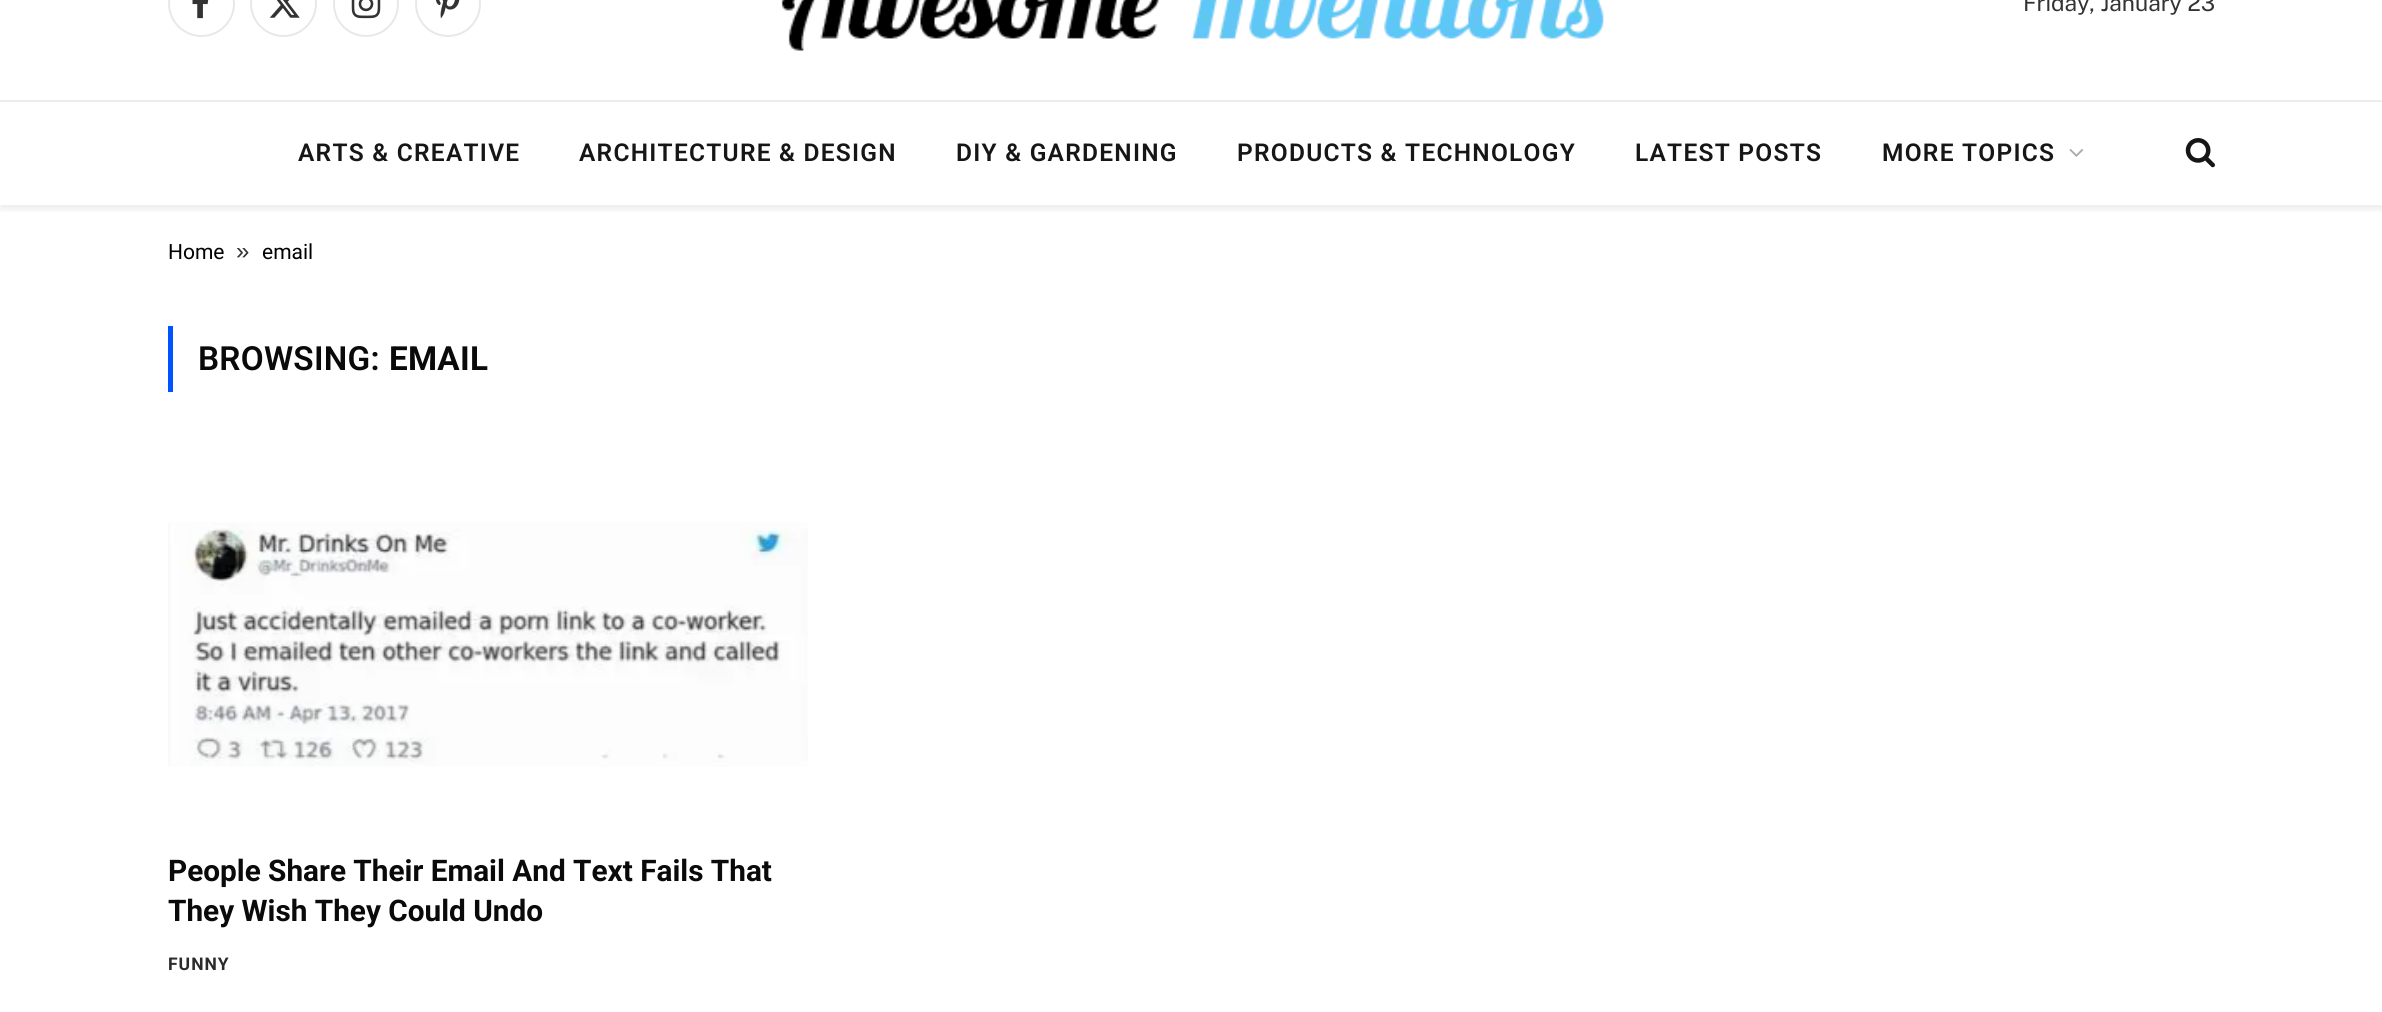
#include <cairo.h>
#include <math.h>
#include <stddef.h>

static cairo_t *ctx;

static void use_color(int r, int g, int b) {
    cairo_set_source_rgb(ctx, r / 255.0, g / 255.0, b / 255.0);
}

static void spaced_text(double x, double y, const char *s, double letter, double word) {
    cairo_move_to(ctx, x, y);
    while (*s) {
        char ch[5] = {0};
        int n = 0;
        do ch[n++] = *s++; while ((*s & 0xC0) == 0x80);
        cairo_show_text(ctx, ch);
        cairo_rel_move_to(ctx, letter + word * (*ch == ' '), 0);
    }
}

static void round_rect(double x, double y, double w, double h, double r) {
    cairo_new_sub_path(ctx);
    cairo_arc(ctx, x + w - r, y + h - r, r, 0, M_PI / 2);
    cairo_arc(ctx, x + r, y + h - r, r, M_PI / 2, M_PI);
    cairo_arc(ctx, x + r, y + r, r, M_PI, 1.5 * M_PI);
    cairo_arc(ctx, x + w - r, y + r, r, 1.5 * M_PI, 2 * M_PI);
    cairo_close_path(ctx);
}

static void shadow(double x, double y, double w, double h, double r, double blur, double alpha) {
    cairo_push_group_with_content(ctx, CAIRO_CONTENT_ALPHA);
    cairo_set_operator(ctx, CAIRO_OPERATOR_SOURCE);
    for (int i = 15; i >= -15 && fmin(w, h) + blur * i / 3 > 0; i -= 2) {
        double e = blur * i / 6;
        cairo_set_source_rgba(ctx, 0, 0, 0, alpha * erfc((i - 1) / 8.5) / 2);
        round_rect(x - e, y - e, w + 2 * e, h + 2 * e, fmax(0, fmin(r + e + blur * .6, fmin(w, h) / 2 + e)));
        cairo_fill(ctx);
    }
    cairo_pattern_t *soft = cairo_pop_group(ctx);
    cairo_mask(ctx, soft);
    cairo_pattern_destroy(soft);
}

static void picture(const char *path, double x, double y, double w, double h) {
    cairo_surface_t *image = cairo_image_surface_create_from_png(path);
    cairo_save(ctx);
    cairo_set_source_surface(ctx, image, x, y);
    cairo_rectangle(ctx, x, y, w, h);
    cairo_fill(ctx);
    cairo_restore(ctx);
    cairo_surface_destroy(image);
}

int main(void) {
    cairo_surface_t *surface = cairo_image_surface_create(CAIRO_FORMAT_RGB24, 2382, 1012);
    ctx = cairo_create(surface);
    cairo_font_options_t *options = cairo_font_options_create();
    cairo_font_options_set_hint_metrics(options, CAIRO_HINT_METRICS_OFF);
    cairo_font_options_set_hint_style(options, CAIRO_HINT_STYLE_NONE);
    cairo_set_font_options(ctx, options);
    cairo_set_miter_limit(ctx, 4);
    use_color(255, 255, 255);
    cairo_paint(ctx);
    cairo_save(ctx);
    cairo_rectangle(ctx, 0, 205, 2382, 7);
    cairo_clip(ctx);
    use_color(0, 0, 0);
    shadow(0, -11, 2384, 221, 0, 3.5, 0.07);
    cairo_restore(ctx);
    cairo_arc(ctx, 201.5, 3.5, 32.5, 0, 2 * M_PI);
    use_color(232, 232, 232);
    cairo_stroke(ctx);
    picture("img1.png", 192, 0, 17, 19);
    cairo_arc(ctx, 283.5, 3.5, 32.5, 0, 2 * M_PI);
    cairo_stroke(ctx);
    picture("img2.png", 269, 0, 31, 18);
    round_rect(334, -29, 64, 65, 32);
    cairo_stroke(ctx);
    picture("img3.png", 351, 0, 30, 19);
    round_rect(416, -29, 64, 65, 32);
    cairo_stroke(ctx);
    picture("img4.png", 435, 0, 25, 19);
    picture("img5.png", 781, 0, 823, 51);
    cairo_select_font_face(ctx, "Public Sans", CAIRO_FONT_SLANT_NORMAL, CAIRO_FONT_WEIGHT_NORMAL);
    cairo_set_font_size(ctx, 22.75);
    use_color(51, 51, 51);
    cairo_move_to(ctx, 2023, 11);
    cairo_show_text(ctx, "Friday, January 23");
    use_color(237, 237, 237);
    cairo_rectangle(ctx, 0, 100, 2382, 2);
    cairo_fill(ctx);
    cairo_select_font_face(ctx, "Roboto SemiBold", CAIRO_FONT_SLANT_NORMAL, CAIRO_FONT_WEIGHT_NORMAL);
    cairo_set_font_size(ctx, 24.5);
    use_color(22, 22, 22);
    spaced_text(298, 161, "ARTS & CREATIVE", 1.25, 0);
    spaced_text(579, 161, "ARCHITECTURE & DESIGN", 1.25, 0);
    spaced_text(956, 161, "DIY & GARDENING", 1.25, 0);
    spaced_text(1237, 161, "PRODUCTS & TECHNOLOGY", 1.25, 0);
    spaced_text(1635, 161, "LATEST POSTS", 1.25, 0);
    spaced_text(1882, 161, "MORE TOPICS", 1.25, 0);
    picture("img6.png", 2069, 149, 15, 8);
    picture("img7.png", 2185, 138, 30, 30);
    cairo_select_font_face(ctx, "Roboto", CAIRO_FONT_SLANT_NORMAL, CAIRO_FONT_WEIGHT_NORMAL);
    cairo_set_font_size(ctx, 21);
    use_color(0, 0, 0);
    cairo_move_to(ctx, 168, 259);
    cairo_show_text(ctx, "Home");
    cairo_select_font_face(ctx, "Liberation Sans", CAIRO_FONT_SLANT_NORMAL, CAIRO_FONT_WEIGHT_NORMAL);
    cairo_set_font_size(ctx, 24);
    use_color(51, 51, 51);
    cairo_move_to(ctx, 236, 259);
    cairo_show_text(ctx, "»");
    cairo_select_font_face(ctx, "Roboto", CAIRO_FONT_SLANT_NORMAL, CAIRO_FONT_WEIGHT_NORMAL);
    cairo_set_font_size(ctx, 21);
    use_color(0, 0, 0);
    cairo_move_to(ctx, 262, 259);
    cairo_show_text(ctx, "email");
    use_color(0, 84, 255);
    cairo_rectangle(ctx, 168, 326, 5, 66);
    cairo_fill(ctx);
    cairo_select_font_face(ctx, "Roboto SemiBold", CAIRO_FONT_SLANT_NORMAL, CAIRO_FONT_WEIGHT_NORMAL);
    cairo_set_font_size(ctx, 33.25);
    use_color(10, 10, 10);
    spaced_text(198, 370, "BROWSING:", 0.25, 0);
    cairo_select_font_face(ctx, "Roboto", CAIRO_FONT_SLANT_NORMAL, CAIRO_FONT_WEIGHT_BOLD);
    spaced_text(389, 370, "EMAIL", 0.25, 0);
    picture("img8.png", 168, 522, 640, 245);
    cairo_set_font_size(ctx, 29.75);
    cairo_move_to(ctx, 168, 881);
    cairo_show_text(ctx, "People Share Their Email And Text Fails That");
    cairo_move_to(ctx, 168, 921);
    cairo_show_text(ctx, "They Wish They Could Undo");
    cairo_set_font_size(ctx, 17.5);
    use_color(43, 43, 43);
    spaced_text(168, 970, "FUNNY", 1, 0);
    cairo_surface_write_to_png(surface, "result.png");
    cairo_font_options_destroy(options);
    cairo_destroy(ctx);
    cairo_surface_destroy(surface);
    return 0;
}
